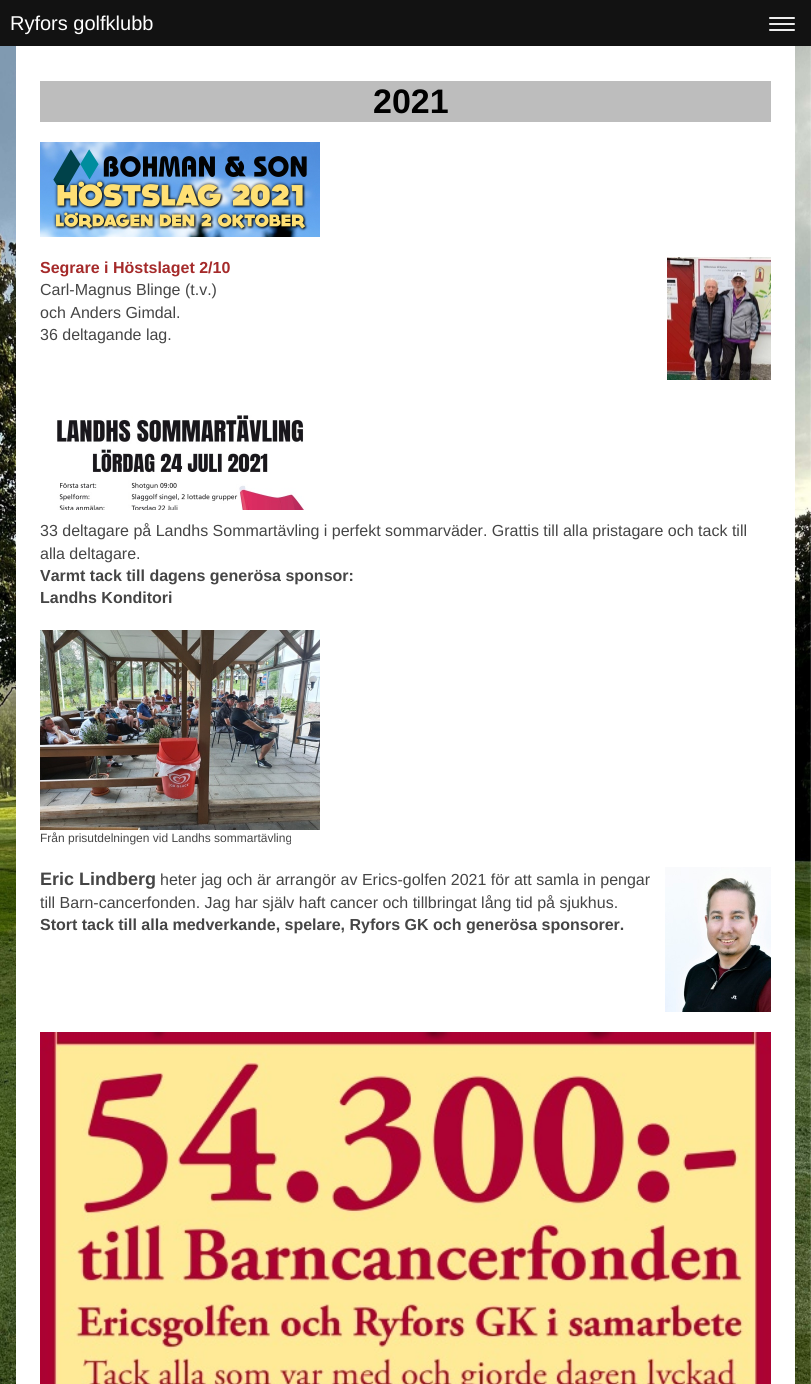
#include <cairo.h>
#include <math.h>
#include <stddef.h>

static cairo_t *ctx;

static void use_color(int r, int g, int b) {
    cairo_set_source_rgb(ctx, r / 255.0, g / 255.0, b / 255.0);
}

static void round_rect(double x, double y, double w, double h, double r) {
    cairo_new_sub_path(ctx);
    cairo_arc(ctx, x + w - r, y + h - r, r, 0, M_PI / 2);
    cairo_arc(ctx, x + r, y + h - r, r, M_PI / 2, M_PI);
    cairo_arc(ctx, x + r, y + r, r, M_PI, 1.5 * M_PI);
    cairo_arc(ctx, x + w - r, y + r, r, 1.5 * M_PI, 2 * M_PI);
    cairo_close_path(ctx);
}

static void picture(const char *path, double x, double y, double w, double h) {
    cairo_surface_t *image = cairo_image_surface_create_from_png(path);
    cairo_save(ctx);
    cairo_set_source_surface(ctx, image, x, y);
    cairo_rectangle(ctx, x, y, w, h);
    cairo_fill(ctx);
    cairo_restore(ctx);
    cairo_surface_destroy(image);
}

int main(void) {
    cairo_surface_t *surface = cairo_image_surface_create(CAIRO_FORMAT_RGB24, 811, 1384);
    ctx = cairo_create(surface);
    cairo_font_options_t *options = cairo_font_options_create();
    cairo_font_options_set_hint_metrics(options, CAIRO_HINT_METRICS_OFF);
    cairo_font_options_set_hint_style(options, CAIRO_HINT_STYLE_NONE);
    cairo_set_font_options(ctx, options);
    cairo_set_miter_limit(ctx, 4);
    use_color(255, 255, 255);
    cairo_paint(ctx);
    picture("img1.png", 0, 46, 811, 1338);
    use_color(18, 18, 18);
    cairo_rectangle(ctx, 0, 0, 811, 46);
    cairo_fill(ctx);
    cairo_select_font_face(ctx, "Liberation Sans", CAIRO_FONT_SLANT_NORMAL, CAIRO_FONT_WEIGHT_NORMAL);
    cairo_set_font_size(ctx, 20);
    use_color(255, 255, 255);
    cairo_move_to(ctx, 10, 30);
    cairo_show_text(ctx, "Ryfors golfklubb");
    use_color(238, 238, 238);
    round_rect(769, 17, 26, 2, 1);
    cairo_fill(ctx);
    round_rect(769, 23, 26, 2, 1);
    cairo_fill(ctx);
    round_rect(769, 29, 26, 2, 1);
    cairo_fill(ctx);
    use_color(255, 255, 255);
    cairo_rectangle(ctx, 16, 46, 779, 1338);
    cairo_fill(ctx);
    use_color(189, 189, 189);
    cairo_rectangle(ctx, 40, 81, 731, 41);
    cairo_fill(ctx);
    cairo_select_font_face(ctx, "Liberation Sans", CAIRO_FONT_SLANT_NORMAL, CAIRO_FONT_WEIGHT_BOLD);
    cairo_set_font_size(ctx, 34);
    use_color(0, 0, 0);
    cairo_move_to(ctx, 373, 113);
    cairo_show_text(ctx, "2021");
    picture("img2.png", 40, 142, 280, 95);
    cairo_set_font_size(ctx, 16);
    use_color(165, 42, 42);
    cairo_move_to(ctx, 40, 273);
    cairo_show_text(ctx, "Segrare i Höstslaget 2/10");
    cairo_select_font_face(ctx, "Liberation Sans", CAIRO_FONT_SLANT_NORMAL, CAIRO_FONT_WEIGHT_NORMAL);
    use_color(69, 69, 69);
    cairo_move_to(ctx, 40, 295);
    cairo_show_text(ctx, "Carl-Magnus Blinge (t.v.)");
    cairo_move_to(ctx, 40, 318);
    cairo_show_text(ctx, "och Anders Gimdal.");
    cairo_move_to(ctx, 40, 340);
    cairo_show_text(ctx, "36 deltagande lag.");
    picture("img3.png", 667, 257, 104, 123);
    picture("img4.png", 57, 415, 249, 95);
    cairo_move_to(ctx, 40, 536);
    cairo_show_text(ctx, "33 deltagare på Landhs Sommartävling i perfekt sommarväder. Grattis till alla pristagare och tack till");
    cairo_move_to(ctx, 40, 559);
    cairo_show_text(ctx, "alla deltagare.");
    cairo_select_font_face(ctx, "Liberation Sans", CAIRO_FONT_SLANT_NORMAL, CAIRO_FONT_WEIGHT_BOLD);
    cairo_move_to(ctx, 40, 581);
    cairo_show_text(ctx, "Varmt tack till dagens generösa sponsor:");
    cairo_move_to(ctx, 40, 603);
    cairo_show_text(ctx, "Landhs Konditori");
    picture("img5.png", 40, 630, 280, 200);
    cairo_select_font_face(ctx, "Liberation Sans", CAIRO_FONT_SLANT_NORMAL, CAIRO_FONT_WEIGHT_NORMAL);
    cairo_set_font_size(ctx, 12);
    cairo_move_to(ctx, 40, 842);
    cairo_show_text(ctx, "Från prisutdelningen vid Landhs sommartävling");
    cairo_select_font_face(ctx, "Liberation Sans", CAIRO_FONT_SLANT_NORMAL, CAIRO_FONT_WEIGHT_BOLD);
    cairo_set_font_size(ctx, 18);
    cairo_move_to(ctx, 40, 885);
    cairo_show_text(ctx, "Eric Lindberg");
    cairo_select_font_face(ctx, "Liberation Sans", CAIRO_FONT_SLANT_NORMAL, CAIRO_FONT_WEIGHT_NORMAL);
    cairo_set_font_size(ctx, 16);
    cairo_move_to(ctx, 160, 885);
    cairo_show_text(ctx, "heter jag och är arrangör av Erics-golfen 2021 för att samla in pengar");
    cairo_move_to(ctx, 40, 908);
    cairo_show_text(ctx, "till Barn-cancerfonden. Jag har själv haft cancer och tillbringat lång tid på sjukhus.");
    cairo_select_font_face(ctx, "Liberation Sans", CAIRO_FONT_SLANT_NORMAL, CAIRO_FONT_WEIGHT_BOLD);
    cairo_move_to(ctx, 40, 930);
    cairo_show_text(ctx, "Stort tack till alla medverkande, spelare, Ryfors GK och generösa sponsorer.");
    picture("img6.png", 665, 867, 106, 145);
    picture("img7.png", 40, 1032, 731, 352);
    cairo_surface_write_to_png(surface, "result.png");
    cairo_font_options_destroy(options);
    cairo_destroy(ctx);
    cairo_surface_destroy(surface);
    return 0;
}
